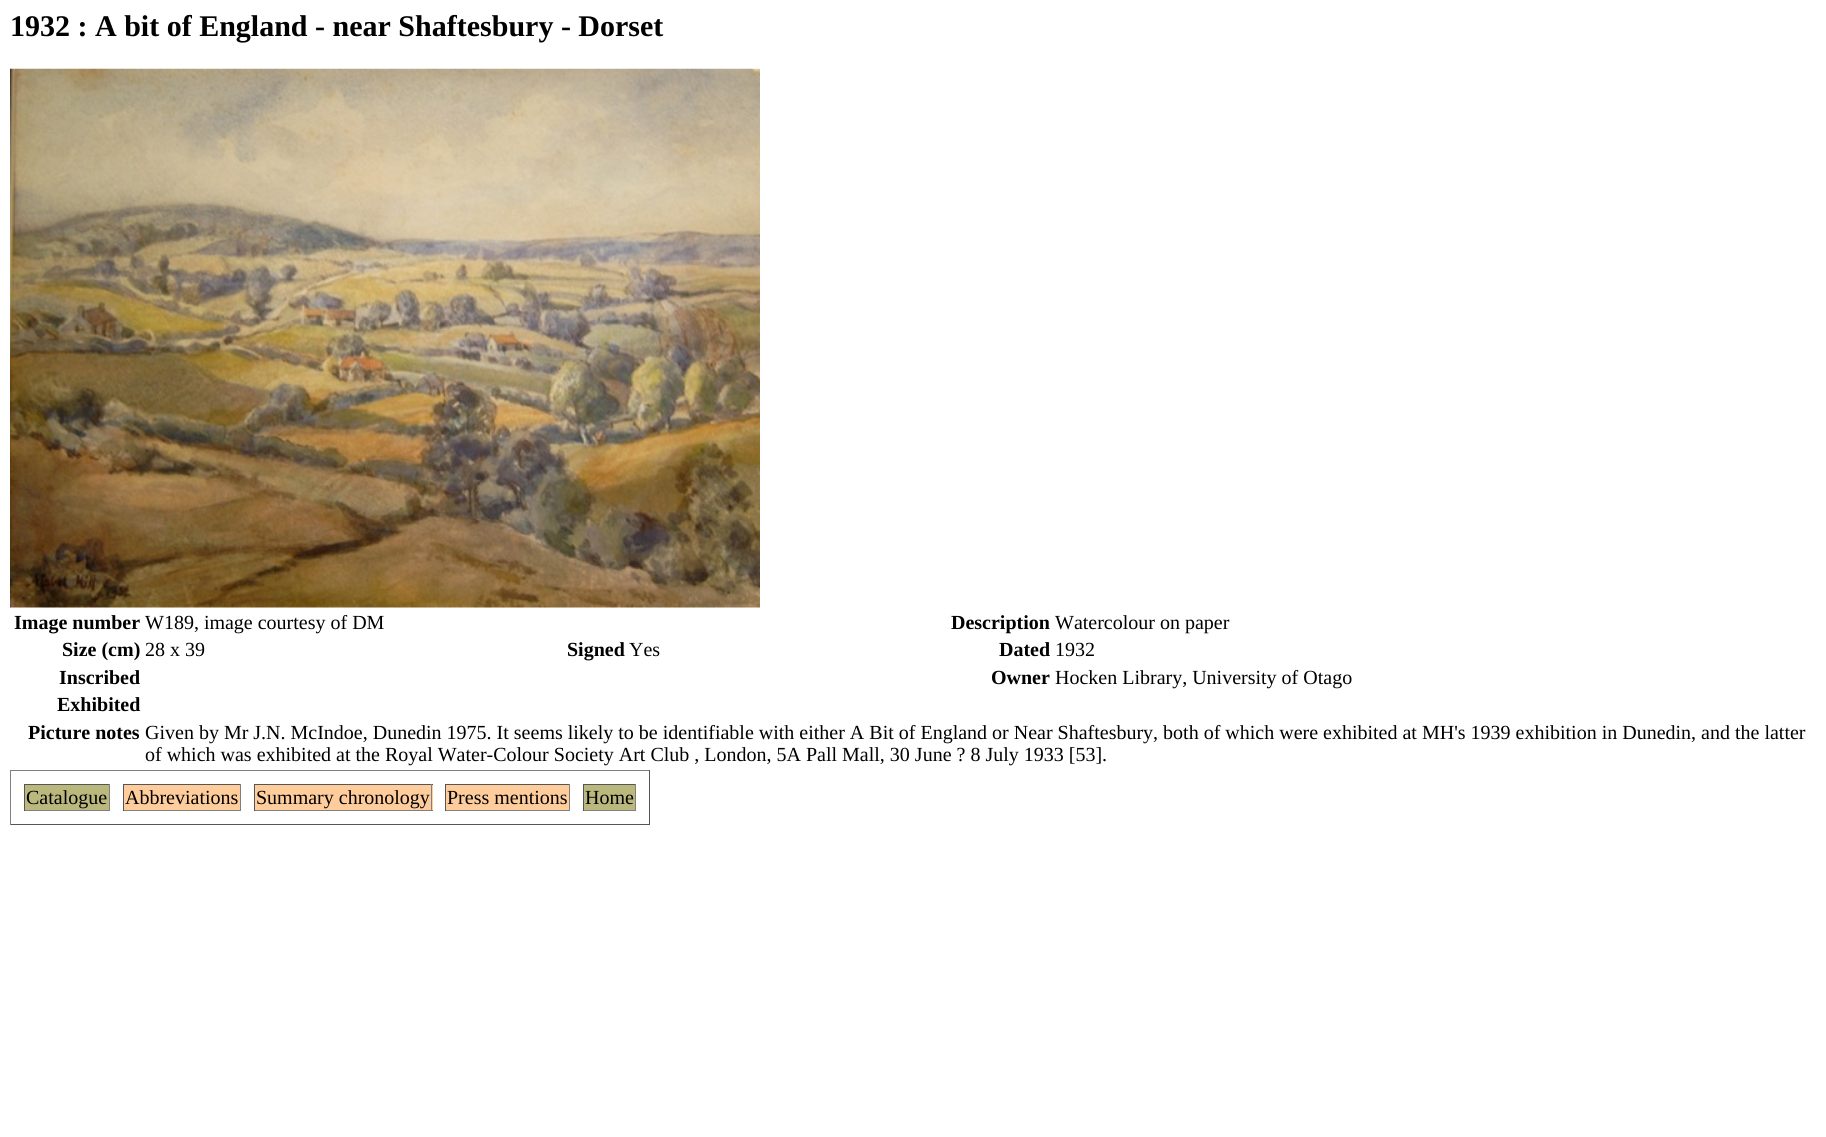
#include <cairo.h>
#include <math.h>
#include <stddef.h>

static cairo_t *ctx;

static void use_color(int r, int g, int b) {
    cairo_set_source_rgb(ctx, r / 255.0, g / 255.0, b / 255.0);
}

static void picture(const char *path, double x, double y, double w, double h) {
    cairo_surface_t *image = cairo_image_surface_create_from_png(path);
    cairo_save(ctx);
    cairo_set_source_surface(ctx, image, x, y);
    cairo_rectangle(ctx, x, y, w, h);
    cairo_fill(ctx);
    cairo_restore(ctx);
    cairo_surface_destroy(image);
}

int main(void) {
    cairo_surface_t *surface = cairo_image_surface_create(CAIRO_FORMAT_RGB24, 1826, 1137);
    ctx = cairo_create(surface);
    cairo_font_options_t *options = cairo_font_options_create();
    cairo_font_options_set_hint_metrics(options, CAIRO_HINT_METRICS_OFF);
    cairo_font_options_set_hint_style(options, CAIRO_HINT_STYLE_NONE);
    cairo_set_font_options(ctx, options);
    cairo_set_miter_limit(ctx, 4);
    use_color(255, 255, 255);
    cairo_paint(ctx);
    cairo_select_font_face(ctx, "Liberation Serif", CAIRO_FONT_SLANT_NORMAL, CAIRO_FONT_WEIGHT_BOLD);
    cairo_set_font_size(ctx, 30);
    use_color(0, 0, 0);
    cairo_move_to(ctx, 10, 36);
    cairo_show_text(ctx, "1932 : A bit of England - near Shaftesbury - Dorset");
    picture("img1.png", 10, 68, 750, 540);
    cairo_set_font_size(ctx, 20);
    cairo_move_to(ctx, 14, 629);
    cairo_show_text(ctx, "Image number");
    cairo_select_font_face(ctx, "Liberation Serif", CAIRO_FONT_SLANT_NORMAL, CAIRO_FONT_WEIGHT_NORMAL);
    cairo_move_to(ctx, 145, 629);
    cairo_show_text(ctx, "W189, image courtesy of DM");
    cairo_select_font_face(ctx, "Liberation Serif", CAIRO_FONT_SLANT_NORMAL, CAIRO_FONT_WEIGHT_BOLD);
    cairo_move_to(ctx, 951, 629);
    cairo_show_text(ctx, "Description");
    cairo_select_font_face(ctx, "Liberation Serif", CAIRO_FONT_SLANT_NORMAL, CAIRO_FONT_WEIGHT_NORMAL);
    cairo_move_to(ctx, 1055, 629);
    cairo_show_text(ctx, "Watercolour on paper");
    cairo_select_font_face(ctx, "Liberation Serif", CAIRO_FONT_SLANT_NORMAL, CAIRO_FONT_WEIGHT_BOLD);
    cairo_move_to(ctx, 62, 656);
    cairo_show_text(ctx, "Size (cm)");
    cairo_select_font_face(ctx, "Liberation Serif", CAIRO_FONT_SLANT_NORMAL, CAIRO_FONT_WEIGHT_NORMAL);
    cairo_move_to(ctx, 145, 656);
    cairo_show_text(ctx, "28 x 39");
    cairo_select_font_face(ctx, "Liberation Serif", CAIRO_FONT_SLANT_NORMAL, CAIRO_FONT_WEIGHT_BOLD);
    cairo_move_to(ctx, 567, 656);
    cairo_show_text(ctx, "Signed");
    cairo_select_font_face(ctx, "Liberation Serif", CAIRO_FONT_SLANT_NORMAL, CAIRO_FONT_WEIGHT_NORMAL);
    cairo_move_to(ctx, 629, 656);
    cairo_show_text(ctx, "Yes");
    cairo_select_font_face(ctx, "Liberation Serif", CAIRO_FONT_SLANT_NORMAL, CAIRO_FONT_WEIGHT_BOLD);
    cairo_move_to(ctx, 999, 656);
    cairo_show_text(ctx, "Dated");
    cairo_select_font_face(ctx, "Liberation Serif", CAIRO_FONT_SLANT_NORMAL, CAIRO_FONT_WEIGHT_NORMAL);
    cairo_move_to(ctx, 1055, 656);
    cairo_show_text(ctx, "1932");
    cairo_select_font_face(ctx, "Liberation Serif", CAIRO_FONT_SLANT_NORMAL, CAIRO_FONT_WEIGHT_BOLD);
    cairo_move_to(ctx, 59, 684);
    cairo_show_text(ctx, "Inscribed");
    cairo_move_to(ctx, 991, 684);
    cairo_show_text(ctx, "Owner");
    cairo_select_font_face(ctx, "Liberation Serif", CAIRO_FONT_SLANT_NORMAL, CAIRO_FONT_WEIGHT_NORMAL);
    cairo_move_to(ctx, 1055, 684);
    cairo_show_text(ctx, "Hocken Library, University of Otago");
    cairo_select_font_face(ctx, "Liberation Serif", CAIRO_FONT_SLANT_NORMAL, CAIRO_FONT_WEIGHT_BOLD);
    cairo_move_to(ctx, 57, 711);
    cairo_show_text(ctx, "Exhibited");
    cairo_move_to(ctx, 28, 739);
    cairo_show_text(ctx, "Picture notes");
    cairo_select_font_face(ctx, "Liberation Serif", CAIRO_FONT_SLANT_NORMAL, CAIRO_FONT_WEIGHT_NORMAL);
    cairo_move_to(ctx, 145, 739);
    cairo_show_text(ctx, "Given by Mr J.N. McIndoe, Dunedin 1975. It seems likely to be identifiable with either A Bit of England or Near Shaftesbury, both of which were exhibited at MH's 1939 exhibition in Dunedin, and the latter");
    cairo_move_to(ctx, 145, 761);
    cairo_show_text(ctx, "of which was exhibited at the Royal Water-Colour Society Art Club , London, 5A Pall Mall, 30 June ? 8 July 1933 [53].");
    use_color(128, 128, 128);
    cairo_rectangle(ctx, 10, 770, 640, 1);
    cairo_fill(ctx);
    use_color(85, 85, 85);
    cairo_rectangle(ctx, 649, 770, 1, 55);
    cairo_fill(ctx);
    cairo_rectangle(ctx, 10, 824, 640, 1);
    cairo_fill(ctx);
    use_color(128, 128, 128);
    cairo_rectangle(ctx, 10, 770, 1, 55);
    cairo_fill(ctx);
    use_color(187, 184, 126);
    cairo_rectangle(ctx, 25, 785, 84, 25);
    cairo_fill(ctx);
    use_color(85, 85, 85);
    cairo_rectangle(ctx, 24, 784, 86, 1);
    cairo_fill(ctx);
    use_color(128, 128, 128);
    cairo_rectangle(ctx, 109, 784, 1, 27);
    cairo_fill(ctx);
    cairo_rectangle(ctx, 24, 810, 86, 1);
    cairo_fill(ctx);
    use_color(85, 85, 85);
    cairo_rectangle(ctx, 24, 784, 1, 27);
    cairo_fill(ctx);
    use_color(0, 0, 0);
    cairo_move_to(ctx, 26, 804);
    cairo_show_text(ctx, "Catalogue");
    use_color(255, 205, 156);
    cairo_rectangle(ctx, 124, 785, 116, 25);
    cairo_fill(ctx);
    use_color(85, 85, 85);
    cairo_rectangle(ctx, 123, 784, 118, 1);
    cairo_fill(ctx);
    use_color(128, 128, 128);
    cairo_rectangle(ctx, 240, 784, 1, 27);
    cairo_fill(ctx);
    cairo_rectangle(ctx, 123, 810, 118, 1);
    cairo_fill(ctx);
    use_color(85, 85, 85);
    cairo_rectangle(ctx, 123, 784, 1, 27);
    cairo_fill(ctx);
    use_color(0, 0, 0);
    cairo_move_to(ctx, 125, 804);
    cairo_show_text(ctx, "Abbreviations");
    use_color(255, 205, 156);
    cairo_rectangle(ctx, 255, 785, 178, 25);
    cairo_fill(ctx);
    use_color(85, 85, 85);
    cairo_rectangle(ctx, 254, 784, 179, 1);
    cairo_fill(ctx);
    use_color(128, 128, 128);
    cairo_rectangle(ctx, 431, 784, 1, 27);
    cairo_fill(ctx);
    cairo_rectangle(ctx, 254, 810, 179, 1);
    cairo_fill(ctx);
    use_color(85, 85, 85);
    cairo_rectangle(ctx, 254, 784, 1, 27);
    cairo_fill(ctx);
    use_color(0, 0, 0);
    cairo_move_to(ctx, 256, 804);
    cairo_show_text(ctx, "Summary chronology");
    use_color(255, 205, 156);
    cairo_rectangle(ctx, 446, 785, 123, 25);
    cairo_fill(ctx);
    use_color(85, 85, 85);
    cairo_rectangle(ctx, 445, 784, 125, 1);
    cairo_fill(ctx);
    use_color(128, 128, 128);
    cairo_rectangle(ctx, 569, 784, 1, 27);
    cairo_fill(ctx);
    cairo_rectangle(ctx, 445, 810, 125, 1);
    cairo_fill(ctx);
    use_color(85, 85, 85);
    cairo_rectangle(ctx, 445, 784, 1, 27);
    cairo_fill(ctx);
    use_color(0, 0, 0);
    cairo_move_to(ctx, 447, 804);
    cairo_show_text(ctx, "Press mentions");
    use_color(187, 184, 126);
    cairo_rectangle(ctx, 584, 785, 51, 25);
    cairo_fill(ctx);
    use_color(85, 85, 85);
    cairo_rectangle(ctx, 583, 784, 53, 1);
    cairo_fill(ctx);
    use_color(128, 128, 128);
    cairo_rectangle(ctx, 635, 784, 1, 27);
    cairo_fill(ctx);
    cairo_rectangle(ctx, 583, 810, 53, 1);
    cairo_fill(ctx);
    use_color(85, 85, 85);
    cairo_rectangle(ctx, 583, 784, 1, 27);
    cairo_fill(ctx);
    use_color(0, 0, 0);
    cairo_move_to(ctx, 585, 804);
    cairo_show_text(ctx, "Home");
    cairo_surface_write_to_png(surface, "result.png");
    cairo_font_options_destroy(options);
    cairo_destroy(ctx);
    cairo_surface_destroy(surface);
    return 0;
}
